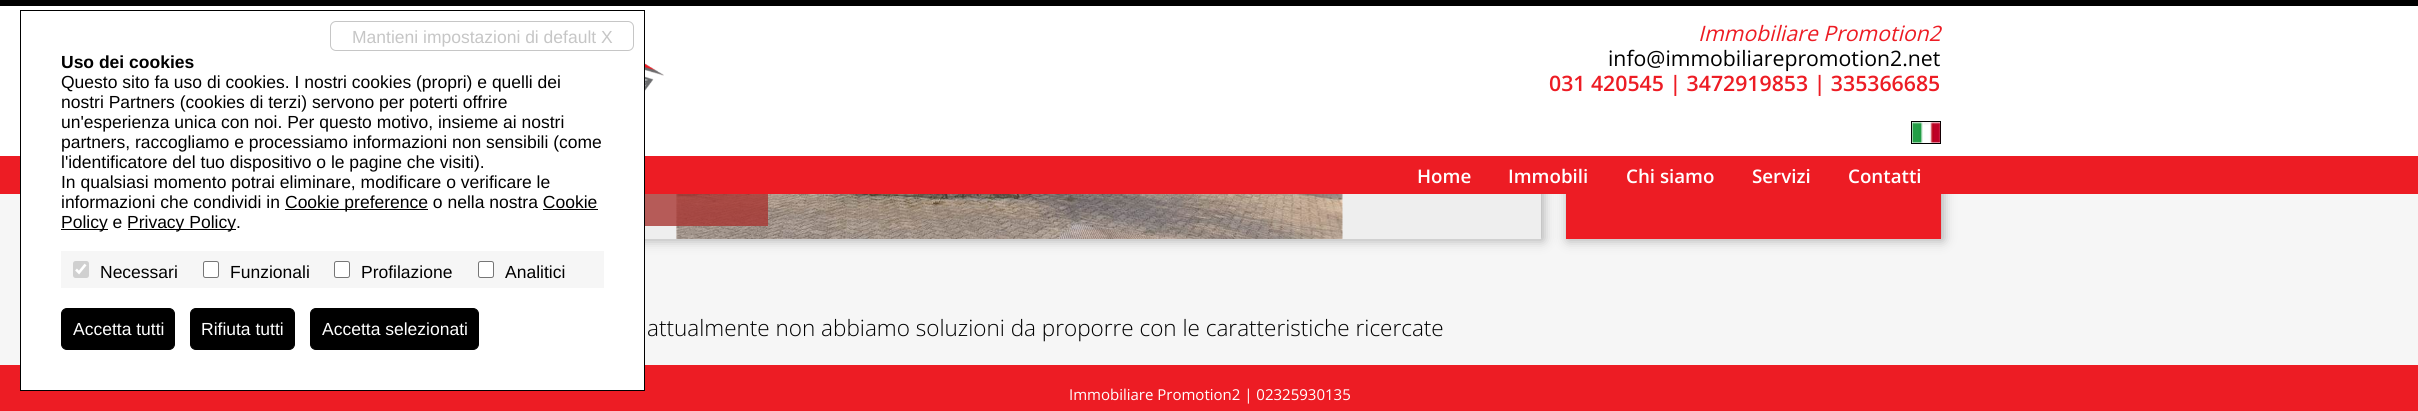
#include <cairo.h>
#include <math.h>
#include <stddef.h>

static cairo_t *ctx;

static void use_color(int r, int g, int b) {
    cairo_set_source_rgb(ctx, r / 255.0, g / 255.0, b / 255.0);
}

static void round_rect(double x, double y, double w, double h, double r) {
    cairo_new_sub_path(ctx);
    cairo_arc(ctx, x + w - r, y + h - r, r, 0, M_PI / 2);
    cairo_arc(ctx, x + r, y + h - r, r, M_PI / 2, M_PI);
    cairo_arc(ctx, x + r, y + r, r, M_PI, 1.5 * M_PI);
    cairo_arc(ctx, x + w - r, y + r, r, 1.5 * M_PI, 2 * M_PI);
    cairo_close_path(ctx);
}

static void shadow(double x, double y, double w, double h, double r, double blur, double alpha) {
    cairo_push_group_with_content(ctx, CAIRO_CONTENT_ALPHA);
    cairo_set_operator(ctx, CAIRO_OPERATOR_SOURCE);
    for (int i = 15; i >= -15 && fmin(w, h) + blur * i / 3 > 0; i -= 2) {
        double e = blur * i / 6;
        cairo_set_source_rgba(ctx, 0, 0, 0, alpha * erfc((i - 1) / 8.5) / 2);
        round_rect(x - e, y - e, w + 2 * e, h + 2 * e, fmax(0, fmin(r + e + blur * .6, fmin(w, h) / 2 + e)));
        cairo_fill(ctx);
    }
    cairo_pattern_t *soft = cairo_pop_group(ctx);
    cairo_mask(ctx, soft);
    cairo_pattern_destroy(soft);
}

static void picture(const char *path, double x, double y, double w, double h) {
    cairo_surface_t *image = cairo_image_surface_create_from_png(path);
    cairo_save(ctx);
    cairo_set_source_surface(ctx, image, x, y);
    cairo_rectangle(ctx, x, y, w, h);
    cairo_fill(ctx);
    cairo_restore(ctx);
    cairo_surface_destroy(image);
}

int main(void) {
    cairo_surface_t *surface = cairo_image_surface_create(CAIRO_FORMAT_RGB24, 2418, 411);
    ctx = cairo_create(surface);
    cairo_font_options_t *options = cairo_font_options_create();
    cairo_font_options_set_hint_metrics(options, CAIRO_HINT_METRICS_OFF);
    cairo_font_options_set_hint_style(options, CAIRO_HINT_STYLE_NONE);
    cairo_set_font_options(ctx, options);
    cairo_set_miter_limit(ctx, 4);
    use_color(246, 246, 246);
    cairo_paint(ctx);
    use_color(170, 170, 170);
    shadow(480, -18, 1063, 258, 0, 6, 1);
    use_color(238, 238, 238);
    cairo_rectangle(ctx, 645, 194, 896, 45);
    cairo_fill(ctx);
    picture("img1.png", 676, 194, 667, 45);
    cairo_set_source_rgba(ctx, 0.655, 0.212, 0.196, 0.8);
    cairo_rectangle(ctx, 645, 194, 123, 32);
    cairo_fill(ctx);
    use_color(170, 170, 170);
    shadow(1568, -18, 375, 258, 0, 6, 1);
    use_color(237, 28, 36);
    cairo_rectangle(ctx, 1566, 194, 375, 45);
    cairo_fill(ctx);
    cairo_rectangle(ctx, 0, 156, 2418, 38);
    cairo_fill(ctx);
    cairo_rectangle(ctx, 0, 365, 2418, 46);
    cairo_fill(ctx);
    use_color(255, 255, 255);
    cairo_rectangle(ctx, 21, 156, 623, 234);
    cairo_fill(ctx);
    cairo_rectangle(ctx, 0, 6, 2418, 150);
    cairo_fill(ctx);
    cairo_rectangle(ctx, 20.5, 10.5, 624, 380);
    use_color(0, 0, 0);
    cairo_set_line_width(ctx, 1);
    cairo_stroke(ctx);
    round_rect(330.5, 21.5, 303, 29, 5.5);
    use_color(198, 198, 198);
    cairo_stroke(ctx);
    cairo_select_font_face(ctx, "Liberation Sans", CAIRO_FONT_SLANT_NORMAL, CAIRO_FONT_WEIGHT_NORMAL);
    cairo_set_font_size(ctx, 17.5);
    cairo_move_to(ctx, 352, 43);
    cairo_show_text(ctx, "Mantieni impostazioni di default X");
    cairo_select_font_face(ctx, "Liberation Sans", CAIRO_FONT_SLANT_NORMAL, CAIRO_FONT_WEIGHT_BOLD);
    use_color(0, 0, 0);
    cairo_move_to(ctx, 61, 68);
    cairo_show_text(ctx, "Uso dei cookies");
    cairo_select_font_face(ctx, "Liberation Sans", CAIRO_FONT_SLANT_NORMAL, CAIRO_FONT_WEIGHT_NORMAL);
    cairo_move_to(ctx, 61, 88);
    cairo_show_text(ctx, "Questo sito fa uso di cookies. I nostri cookies (propri) e quelli dei");
    cairo_move_to(ctx, 61, 108);
    cairo_show_text(ctx, "nostri Partners (cookies di terzi) servono per poterti offrire");
    cairo_move_to(ctx, 61, 128);
    cairo_show_text(ctx, "un'esperienza unica con noi. Per questo motivo, insieme ai nostri");
    cairo_move_to(ctx, 61, 148);
    cairo_show_text(ctx, "partners, raccogliamo e processiamo informazioni non sensibili (come");
    cairo_move_to(ctx, 61, 168);
    cairo_show_text(ctx, "l'identificatore del tuo dispositivo o le pagine che visiti).");
    cairo_move_to(ctx, 61, 188);
    cairo_show_text(ctx, "In qualsiasi momento potrai eliminare, modificare o verificare le");
    cairo_move_to(ctx, 61, 208);
    cairo_show_text(ctx, "informazioni che condividi in");
    cairo_rectangle(ctx, 285, 209, 143, 1);
    cairo_fill(ctx);
    cairo_move_to(ctx, 285, 208);
    cairo_show_text(ctx, "Cookie preference o nella nostra Cookie");
    cairo_rectangle(ctx, 61, 229, 47, 1);
    cairo_fill(ctx);
    cairo_move_to(ctx, 61, 228);
    cairo_show_text(ctx, "Policy e");
    cairo_rectangle(ctx, 543, 209, 55, 1);
    cairo_fill(ctx);
    cairo_rectangle(ctx, 128, 229, 108, 1);
    cairo_fill(ctx);
    cairo_move_to(ctx, 127, 228);
    cairo_show_text(ctx, "Privacy Policy.");
    use_color(246, 246, 246);
    cairo_rectangle(ctx, 61, 251, 543, 37);
    cairo_fill(ctx);
    use_color(208, 208, 208);
    round_rect(73, 261, 16, 17, 2.5);
    cairo_fill(ctx);
    cairo_new_path(ctx);
    cairo_move_to(ctx, 76, 269.5);
    cairo_line_to(ctx, 79, 272.5);
    cairo_line_to(ctx, 85.5, 264.5);
    use_color(255, 255, 255);
    cairo_set_line_width(ctx, 2.6);
    cairo_stroke(ctx);
    use_color(0, 0, 0);
    cairo_move_to(ctx, 100, 278);
    cairo_show_text(ctx, "Necessari");
    use_color(255, 255, 255);
    round_rect(203.5, 261.5, 15, 16, 2);
    cairo_fill_preserve(ctx);
    use_color(118, 118, 118);
    cairo_set_line_width(ctx, 1);
    cairo_stroke(ctx);
    use_color(0, 0, 0);
    cairo_move_to(ctx, 230, 278);
    cairo_show_text(ctx, "Funzionali");
    use_color(255, 255, 255);
    round_rect(334.5, 261.5, 15, 16, 2);
    cairo_fill_preserve(ctx);
    use_color(118, 118, 118);
    cairo_stroke(ctx);
    use_color(0, 0, 0);
    cairo_move_to(ctx, 361, 278);
    cairo_show_text(ctx, "Profilazione");
    use_color(255, 255, 255);
    round_rect(478.5, 261.5, 15, 16, 2);
    cairo_fill_preserve(ctx);
    use_color(118, 118, 118);
    cairo_stroke(ctx);
    use_color(0, 0, 0);
    cairo_move_to(ctx, 505, 278);
    cairo_show_text(ctx, "Analitici");
    round_rect(61.5, 308.5, 113, 41, 5.5);
    cairo_fill_preserve(ctx);
    cairo_stroke(ctx);
    use_color(255, 255, 255);
    cairo_move_to(ctx, 73, 335);
    cairo_show_text(ctx, "Accetta tutti");
    use_color(0, 0, 0);
    round_rect(190.5, 308.5, 104, 41, 5.5);
    cairo_fill_preserve(ctx);
    cairo_stroke(ctx);
    use_color(255, 255, 255);
    cairo_move_to(ctx, 201, 335);
    cairo_show_text(ctx, "Rifiuta tutti");
    use_color(0, 0, 0);
    round_rect(310.5, 308.5, 168, 41, 5.5);
    cairo_fill_preserve(ctx);
    cairo_stroke(ctx);
    use_color(255, 255, 255);
    cairo_move_to(ctx, 322, 335);
    cairo_show_text(ctx, "Accetta selezionati");
    cairo_select_font_face(ctx, "Open Sans Light", CAIRO_FONT_SLANT_NORMAL, CAIRO_FONT_WEIGHT_NORMAL);
    cairo_set_font_size(ctx, 22.5);
    use_color(0, 0, 0);
    cairo_move_to(ctx, 647, 336);
    cairo_show_text(ctx, "attualmente non abbiamo soluzioni da proporre con le caratteristiche ricercate");
    cairo_rectangle(ctx, 0, 0, 2418, 6);
    cairo_fill(ctx);
    picture("img2.png", 645, 63, 19, 28);
    cairo_select_font_face(ctx, "Open Sans", CAIRO_FONT_SLANT_ITALIC, CAIRO_FONT_WEIGHT_NORMAL);
    cairo_set_font_size(ctx, 21.25);
    use_color(237, 28, 36);
    cairo_move_to(ctx, 1698, 41);
    cairo_show_text(ctx, "Immobiliare Promotion2");
    cairo_select_font_face(ctx, "Open Sans", CAIRO_FONT_SLANT_NORMAL, CAIRO_FONT_WEIGHT_NORMAL);
    use_color(0, 0, 0);
    cairo_move_to(ctx, 1608, 66);
    cairo_show_text(ctx, "info@immobiliarepromotion2.net");
    cairo_select_font_face(ctx, "Open Sans SemiBold", CAIRO_FONT_SLANT_NORMAL, CAIRO_FONT_WEIGHT_NORMAL);
    use_color(237, 28, 36);
    cairo_move_to(ctx, 1549, 91);
    cairo_show_text(ctx, "031 420545 | 3472919853 | 335366685");
    cairo_rectangle(ctx, 1911.5, 121.5, 29, 22);
    use_color(0, 0, 0);
    cairo_stroke(ctx);
    picture("img3.png", 1912, 122, 29, 21);
    cairo_set_font_size(ctx, 18.75);
    use_color(255, 255, 255);
    cairo_move_to(ctx, 1417, 183);
    cairo_show_text(ctx, "Home");
    cairo_move_to(ctx, 1508, 183);
    cairo_show_text(ctx, "Immobili");
    cairo_move_to(ctx, 1626, 183);
    cairo_show_text(ctx, "Chi siamo");
    cairo_move_to(ctx, 1752, 183);
    cairo_show_text(ctx, "Servizi");
    cairo_move_to(ctx, 1848, 183);
    cairo_show_text(ctx, "Contatti");
    cairo_select_font_face(ctx, "Open Sans", CAIRO_FONT_SLANT_NORMAL, CAIRO_FONT_WEIGHT_NORMAL);
    cairo_set_font_size(ctx, 15);
    cairo_move_to(ctx, 1069, 400);
    cairo_show_text(ctx, "Immobiliare Promotion2 | 02325930135");
    cairo_surface_write_to_png(surface, "result.png");
    cairo_font_options_destroy(options);
    cairo_destroy(ctx);
    cairo_surface_destroy(surface);
    return 0;
}
